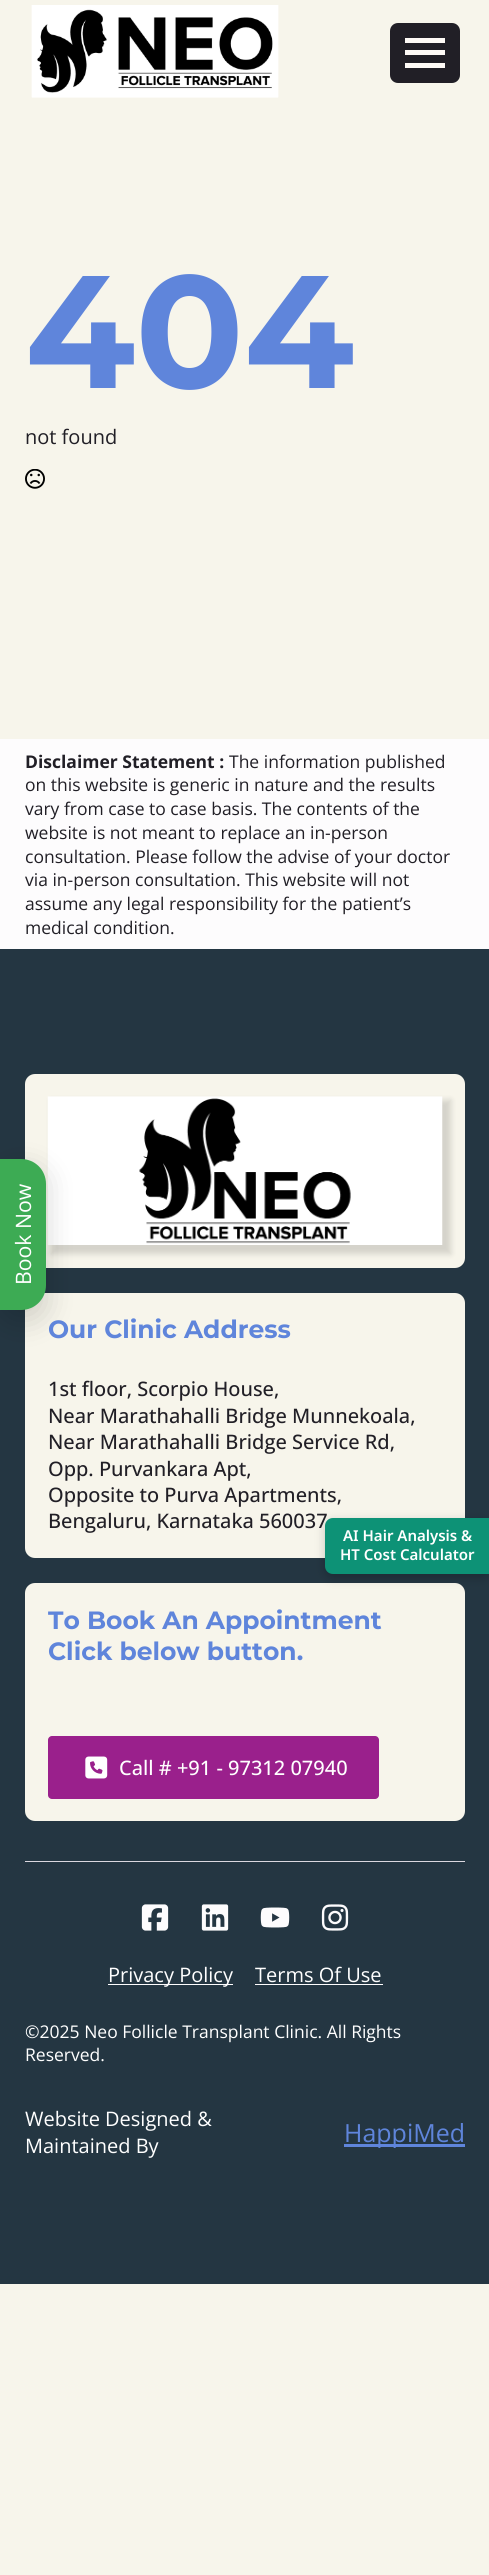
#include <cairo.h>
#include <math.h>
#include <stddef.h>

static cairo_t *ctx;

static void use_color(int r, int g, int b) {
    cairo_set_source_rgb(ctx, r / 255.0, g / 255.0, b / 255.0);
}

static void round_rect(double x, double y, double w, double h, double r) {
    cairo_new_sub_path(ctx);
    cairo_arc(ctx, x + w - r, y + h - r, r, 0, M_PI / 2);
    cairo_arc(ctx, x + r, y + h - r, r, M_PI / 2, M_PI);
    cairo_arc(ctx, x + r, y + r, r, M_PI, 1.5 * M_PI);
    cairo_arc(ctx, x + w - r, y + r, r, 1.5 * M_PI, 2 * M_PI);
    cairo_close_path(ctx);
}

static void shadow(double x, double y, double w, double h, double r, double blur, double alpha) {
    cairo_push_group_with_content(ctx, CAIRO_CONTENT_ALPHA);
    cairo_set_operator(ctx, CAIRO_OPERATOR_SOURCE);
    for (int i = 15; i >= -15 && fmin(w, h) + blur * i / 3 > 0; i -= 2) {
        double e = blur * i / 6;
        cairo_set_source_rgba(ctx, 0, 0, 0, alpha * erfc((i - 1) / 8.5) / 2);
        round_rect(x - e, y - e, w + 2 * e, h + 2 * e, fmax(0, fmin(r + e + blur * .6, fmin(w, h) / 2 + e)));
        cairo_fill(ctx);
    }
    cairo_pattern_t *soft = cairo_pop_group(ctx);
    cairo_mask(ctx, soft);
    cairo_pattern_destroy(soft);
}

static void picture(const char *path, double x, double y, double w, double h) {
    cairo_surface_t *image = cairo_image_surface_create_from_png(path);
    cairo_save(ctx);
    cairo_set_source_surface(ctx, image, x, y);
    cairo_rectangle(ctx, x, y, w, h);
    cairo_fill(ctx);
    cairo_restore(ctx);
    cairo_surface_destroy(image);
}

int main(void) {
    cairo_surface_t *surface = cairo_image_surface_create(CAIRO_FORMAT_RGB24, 489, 2575);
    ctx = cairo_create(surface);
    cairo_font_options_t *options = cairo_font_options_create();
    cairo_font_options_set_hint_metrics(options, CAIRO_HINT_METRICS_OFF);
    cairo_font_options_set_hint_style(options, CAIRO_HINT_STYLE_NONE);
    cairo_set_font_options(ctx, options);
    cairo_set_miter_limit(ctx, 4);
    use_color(247, 245, 235);
    cairo_paint(ctx);
    picture("img1.png", 31, 5, 248, 93);
    use_color(33, 31, 38);
    round_rect(390, 23, 70, 60, 8);
    cairo_fill(ctx);
    use_color(254, 250, 246);
    cairo_rectangle(ctx, 405, 50, 40, 5);
    cairo_fill(ctx);
    cairo_rectangle(ctx, 405, 38, 40, 5);
    cairo_fill(ctx);
    cairo_rectangle(ctx, 405, 63, 40, 5);
    cairo_fill(ctx);
    cairo_select_font_face(ctx, "Montserrat", CAIRO_FONT_SLANT_NORMAL, CAIRO_FONT_WEIGHT_BOLD);
    cairo_set_font_size(ctx, 160);
    use_color(95, 133, 219);
    cairo_move_to(ctx, 25, 388);
    cairo_show_text(ctx, "404");
    cairo_select_font_face(ctx, "Open Sans", CAIRO_FONT_SLANT_NORMAL, CAIRO_FONT_WEIGHT_NORMAL);
    cairo_set_font_size(ctx, 20);
    use_color(33, 31, 38);
    cairo_move_to(ctx, 25, 444);
    cairo_show_text(ctx, "not found");
    picture("img2.png", 25, 469, 20, 20);
    use_color(253, 252, 253);
    cairo_rectangle(ctx, 0, 739, 489, 210);
    cairo_fill(ctx);
    cairo_select_font_face(ctx, "Open Sans", CAIRO_FONT_SLANT_NORMAL, CAIRO_FONT_WEIGHT_BOLD);
    cairo_set_font_size(ctx, 17.5);
    use_color(33, 31, 38);
    cairo_move_to(ctx, 25, 768);
    cairo_show_text(ctx, "Disclaimer Statement :");
    cairo_select_font_face(ctx, "Open Sans", CAIRO_FONT_SLANT_NORMAL, CAIRO_FONT_WEIGHT_NORMAL);
    cairo_move_to(ctx, 229, 768);
    cairo_show_text(ctx, "The information published");
    cairo_move_to(ctx, 25, 791);
    cairo_show_text(ctx, "on this website is generic in nature and the results");
    cairo_move_to(ctx, 25, 815);
    cairo_show_text(ctx, "vary from case to case basis. The contents of the");
    cairo_move_to(ctx, 25, 839);
    cairo_show_text(ctx, "website is not meant to replace an in-person");
    cairo_move_to(ctx, 25, 863);
    cairo_show_text(ctx, "consultation. Please follow the advise of your doctor");
    cairo_move_to(ctx, 25, 886);
    cairo_show_text(ctx, "via in-person consultation. This website will not");
    cairo_move_to(ctx, 25, 910);
    cairo_show_text(ctx, "assume any legal responsibility for the patient’s");
    cairo_move_to(ctx, 25, 934);
    cairo_show_text(ctx, "medical condition.");
    use_color(36, 54, 66);
    cairo_rectangle(ctx, 0, 949, 489, 1335);
    cairo_fill(ctx);
    use_color(247, 245, 235);
    round_rect(25, 1074, 440, 194, 10);
    cairo_fill(ctx);
    use_color(0, 0, 0);
    shadow(51, 1100, 400, 154, 0, 3, 0.14);
    picture("img3.png", 47, 1096, 396, 149);
    use_color(247, 245, 235);
    round_rect(25, 1293, 440, 265, 10);
    cairo_fill(ctx);
    use_color(0, 0, 0);
    shadow(0, 1169, 46, 151, 25, 15, 0.16);
    use_color(61, 171, 84);
    cairo_new_path(ctx);
    cairo_move_to(ctx, 21, 1310);
    cairo_line_to(ctx, 0, 1310);
    cairo_line_to(ctx, 0, 1159);
    cairo_line_to(ctx, 21, 1159);
    cairo_curve_to(ctx, 35, 1159, 46, 1170, 46, 1184);
    cairo_line_to(ctx, 46, 1285);
    cairo_curve_to(ctx, 46, 1299, 35, 1310, 21, 1310);
    cairo_close_path(ctx);
    cairo_fill(ctx);
    cairo_set_font_size(ctx, 21.25);
    use_color(255, 255, 255);
    cairo_save(ctx);
    cairo_translate(ctx, 31, 1285);
    cairo_rotate(ctx, -90 * M_PI / 180);
    cairo_move_to(ctx, 0, 0);
    cairo_show_text(ctx, "Book Now");
    cairo_restore(ctx);
    cairo_select_font_face(ctx, "Montserrat", CAIRO_FONT_SLANT_NORMAL, CAIRO_FONT_WEIGHT_BOLD);
    cairo_set_font_size(ctx, 25);
    use_color(95, 133, 219);
    cairo_move_to(ctx, 48, 1338);
    cairo_show_text(ctx, "Our Clinic Address");
    cairo_select_font_face(ctx, "Open Sans Medium", CAIRO_FONT_SLANT_NORMAL, CAIRO_FONT_WEIGHT_NORMAL);
    cairo_set_font_size(ctx, 20);
    use_color(33, 31, 38);
    cairo_move_to(ctx, 48, 1396);
    cairo_show_text(ctx, "1st floor, Scorpio House,");
    cairo_move_to(ctx, 48, 1423);
    cairo_show_text(ctx, "Near Marathahalli Bridge Munnekoala,");
    cairo_move_to(ctx, 48, 1449);
    cairo_show_text(ctx, "Near Marathahalli Bridge Service Rd,");
    cairo_move_to(ctx, 48, 1476);
    cairo_show_text(ctx, "Opp. Purvankara Apt,");
    cairo_move_to(ctx, 48, 1502);
    cairo_show_text(ctx, "Opposite to Purva Apartments,");
    cairo_move_to(ctx, 48, 1528);
    cairo_show_text(ctx, "Bengaluru, Karnataka 560037");
    use_color(247, 245, 235);
    round_rect(25, 1583, 440, 238, 10);
    cairo_fill(ctx);
    cairo_select_font_face(ctx, "Montserrat", CAIRO_FONT_SLANT_NORMAL, CAIRO_FONT_WEIGHT_BOLD);
    cairo_set_font_size(ctx, 25);
    use_color(95, 133, 219);
    cairo_move_to(ctx, 48, 1629);
    cairo_show_text(ctx, "To Book An Appointment");
    cairo_move_to(ctx, 48, 1660);
    cairo_show_text(ctx, "Click below button.");
    use_color(154, 32, 140);
    round_rect(48, 1736, 331, 63, 4);
    cairo_fill(ctx);
    picture("img4.png", 85, 1756, 23, 23);
    cairo_select_font_face(ctx, "Open Sans Medium", CAIRO_FONT_SLANT_NORMAL, CAIRO_FONT_WEIGHT_NORMAL);
    cairo_set_font_size(ctx, 20);
    use_color(255, 255, 255);
    cairo_move_to(ctx, 119, 1775);
    cairo_show_text(ctx, "Call # +91 - 97312 07940");
    use_color(219, 216, 224);
    cairo_rectangle(ctx, 25, 1861, 440, 1);
    cairo_fill(ctx);
    picture("img5.png", 141, 1904, 28, 27);
    picture("img6.png", 201, 1904, 28, 27);
    picture("img7.png", 260, 1907, 30, 21);
    picture("img8.png", 321, 1904, 28, 27);
    use_color(253, 252, 253);
    cairo_rectangle(ctx, 108, 1984, 125, 1);
    cairo_fill(ctx);
    cairo_select_font_face(ctx, "Open Sans", CAIRO_FONT_SLANT_NORMAL, CAIRO_FONT_WEIGHT_NORMAL);
    use_color(255, 255, 255);
    cairo_move_to(ctx, 108, 1982);
    cairo_show_text(ctx, "Privacy Policy");
    cairo_move_to(ctx, 255, 1982);
    cairo_show_text(ctx, "Terms Of Use");
    use_color(253, 252, 253);
    cairo_rectangle(ctx, 255, 1984, 128, 1);
    cairo_fill(ctx);
    cairo_set_font_size(ctx, 17.5);
    use_color(255, 255, 255);
    cairo_move_to(ctx, 25, 2038);
    cairo_show_text(ctx, "©2025 Neo Follicle Transplant Clinic. All Rights");
    cairo_move_to(ctx, 25, 2061);
    cairo_show_text(ctx, "Reserved.");
    cairo_set_font_size(ctx, 20);
    cairo_move_to(ctx, 25, 2126);
    cairo_show_text(ctx, "Website Designed &");
    cairo_move_to(ctx, 25, 2153);
    cairo_show_text(ctx, "Maintained By");
    use_color(95, 133, 219);
    cairo_rectangle(ctx, 344, 2144, 121, 3);
    cairo_fill(ctx);
    cairo_set_font_size(ctx, 25);
    cairo_move_to(ctx, 344, 2142);
    cairo_show_text(ctx, "HappiMed");
    use_color(0, 0, 0);
    shadow(325, 1521, 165, 57, 8, 5, 0.2);
    use_color(13, 146, 118);
    cairo_new_path(ctx);
    cairo_move_to(ctx, 333, 1518);
    cairo_line_to(ctx, 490, 1518);
    cairo_line_to(ctx, 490, 1574);
    cairo_line_to(ctx, 333, 1574);
    cairo_curve_to(ctx, 328.5, 1574, 325, 1570.5, 325, 1566);
    cairo_line_to(ctx, 325, 1526);
    cairo_curve_to(ctx, 325, 1521.5, 328.5, 1518, 333, 1518);
    cairo_close_path(ctx);
    cairo_fill(ctx);
    cairo_select_font_face(ctx, "Noto Sans SemiBold", CAIRO_FONT_SLANT_NORMAL, CAIRO_FONT_WEIGHT_NORMAL);
    cairo_set_font_size(ctx, 15);
    use_color(255, 255, 255);
    cairo_move_to(ctx, 343, 1541);
    cairo_show_text(ctx, "AI Hair Analysis &");
    cairo_move_to(ctx, 340, 1560);
    cairo_show_text(ctx, "HT Cost Calculator");
    cairo_surface_write_to_png(surface, "result.png");
    cairo_font_options_destroy(options);
    cairo_destroy(ctx);
    cairo_surface_destroy(surface);
    return 0;
}
